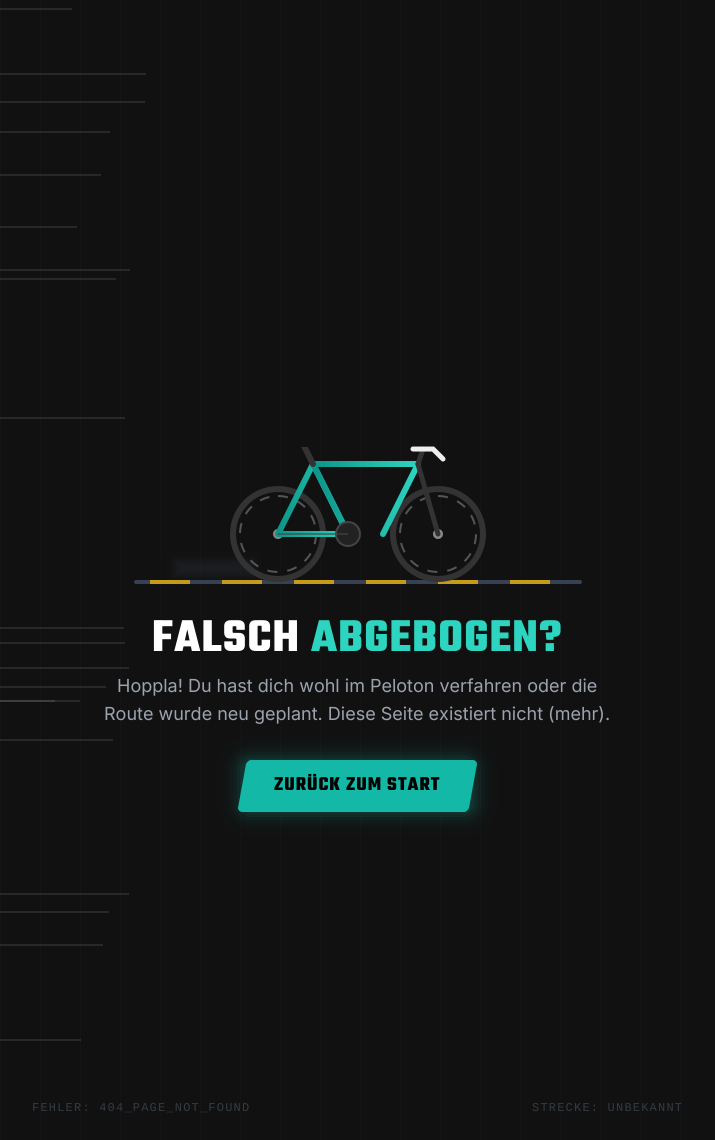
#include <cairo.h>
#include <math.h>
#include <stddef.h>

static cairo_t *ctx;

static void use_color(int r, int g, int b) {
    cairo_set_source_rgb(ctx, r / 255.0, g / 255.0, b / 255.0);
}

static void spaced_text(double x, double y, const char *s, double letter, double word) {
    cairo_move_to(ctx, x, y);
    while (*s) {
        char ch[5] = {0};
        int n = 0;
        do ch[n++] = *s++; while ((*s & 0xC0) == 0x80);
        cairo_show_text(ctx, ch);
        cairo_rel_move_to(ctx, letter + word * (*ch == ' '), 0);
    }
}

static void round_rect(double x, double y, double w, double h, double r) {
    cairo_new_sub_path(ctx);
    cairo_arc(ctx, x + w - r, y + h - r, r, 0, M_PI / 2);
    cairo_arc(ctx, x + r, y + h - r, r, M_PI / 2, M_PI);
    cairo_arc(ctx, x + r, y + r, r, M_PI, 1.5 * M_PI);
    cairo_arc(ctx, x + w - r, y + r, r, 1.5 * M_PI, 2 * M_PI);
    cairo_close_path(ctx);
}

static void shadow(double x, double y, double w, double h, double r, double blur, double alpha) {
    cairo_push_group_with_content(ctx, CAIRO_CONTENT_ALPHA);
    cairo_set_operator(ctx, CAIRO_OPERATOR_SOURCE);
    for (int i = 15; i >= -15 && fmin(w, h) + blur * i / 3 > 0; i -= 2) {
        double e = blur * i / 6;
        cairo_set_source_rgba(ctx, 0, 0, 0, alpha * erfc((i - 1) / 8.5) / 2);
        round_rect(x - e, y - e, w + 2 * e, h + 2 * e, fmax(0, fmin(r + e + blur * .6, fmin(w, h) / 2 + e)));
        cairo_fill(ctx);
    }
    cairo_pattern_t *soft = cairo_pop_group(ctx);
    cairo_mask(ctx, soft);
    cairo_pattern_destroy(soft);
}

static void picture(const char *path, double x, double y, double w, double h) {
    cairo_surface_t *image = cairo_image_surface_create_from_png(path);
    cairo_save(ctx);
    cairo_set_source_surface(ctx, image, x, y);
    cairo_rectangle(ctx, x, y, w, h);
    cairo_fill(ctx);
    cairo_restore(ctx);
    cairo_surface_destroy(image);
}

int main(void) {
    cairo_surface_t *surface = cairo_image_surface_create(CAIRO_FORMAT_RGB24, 715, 1140);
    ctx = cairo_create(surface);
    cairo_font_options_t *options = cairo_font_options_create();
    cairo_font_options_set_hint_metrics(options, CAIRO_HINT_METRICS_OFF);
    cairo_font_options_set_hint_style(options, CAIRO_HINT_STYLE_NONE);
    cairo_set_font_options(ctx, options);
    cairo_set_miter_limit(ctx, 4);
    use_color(17, 17, 17);
    cairo_paint(ctx);
    use_color(20, 20, 20);
    cairo_rectangle(ctx, 0, 0, 1, 1140);
    cairo_fill(ctx);
    cairo_rectangle(ctx, 40, 0, 1, 1140);
    cairo_fill(ctx);
    cairo_rectangle(ctx, 80, 0, 1, 1140);
    cairo_fill(ctx);
    cairo_rectangle(ctx, 120, 0, 1, 1140);
    cairo_fill(ctx);
    cairo_rectangle(ctx, 160, 0, 1, 1140);
    cairo_fill(ctx);
    cairo_rectangle(ctx, 200, 0, 1, 1140);
    cairo_fill(ctx);
    cairo_rectangle(ctx, 240, 0, 1, 1140);
    cairo_fill(ctx);
    cairo_rectangle(ctx, 280, 0, 1, 1140);
    cairo_fill(ctx);
    cairo_rectangle(ctx, 320, 0, 1, 1140);
    cairo_fill(ctx);
    cairo_rectangle(ctx, 360, 0, 1, 1140);
    cairo_fill(ctx);
    cairo_rectangle(ctx, 400, 0, 1, 1140);
    cairo_fill(ctx);
    cairo_rectangle(ctx, 440, 0, 1, 1140);
    cairo_fill(ctx);
    cairo_rectangle(ctx, 480, 0, 1, 1140);
    cairo_fill(ctx);
    cairo_rectangle(ctx, 520, 0, 1, 1140);
    cairo_fill(ctx);
    cairo_rectangle(ctx, 560, 0, 1, 1140);
    cairo_fill(ctx);
    cairo_rectangle(ctx, 600, 0, 1, 1140);
    cairo_fill(ctx);
    cairo_rectangle(ctx, 640, 0, 1, 1140);
    cairo_fill(ctx);
    cairo_rectangle(ctx, 680, 0, 1, 1140);
    cairo_fill(ctx);
    cairo_set_source_rgba(ctx, 1, 1, 1, 0.1);
    cairo_rectangle(ctx, 0, 8, 72, 2);
    cairo_fill(ctx);
    cairo_rectangle(ctx, 0, 73, 146, 2);
    cairo_fill(ctx);
    cairo_rectangle(ctx, 0, 101, 145, 2);
    cairo_fill(ctx);
    cairo_rectangle(ctx, 0, 131, 110, 2);
    cairo_fill(ctx);
    cairo_rectangle(ctx, 0, 174, 101, 2);
    cairo_fill(ctx);
    cairo_rectangle(ctx, 0, 226, 77, 2);
    cairo_fill(ctx);
    cairo_rectangle(ctx, 0, 269, 130, 2);
    cairo_fill(ctx);
    cairo_rectangle(ctx, 0, 278, 116, 2);
    cairo_fill(ctx);
    cairo_rectangle(ctx, 0, 417, 125, 2);
    cairo_fill(ctx);
    cairo_rectangle(ctx, 0, 627, 124, 2);
    cairo_fill(ctx);
    cairo_rectangle(ctx, 0, 642, 125, 2);
    cairo_fill(ctx);
    cairo_rectangle(ctx, 0, 667, 129, 2);
    cairo_fill(ctx);
    cairo_rectangle(ctx, 0, 686, 106, 2);
    cairo_fill(ctx);
    cairo_rectangle(ctx, 0, 700, 80, 2);
    cairo_fill(ctx);
    cairo_rectangle(ctx, 0, 700, 55, 2);
    cairo_fill(ctx);
    cairo_rectangle(ctx, 0, 739, 113, 2);
    cairo_fill(ctx);
    cairo_rectangle(ctx, 0, 893, 129, 2);
    cairo_fill(ctx);
    cairo_rectangle(ctx, 0, 911, 109, 2);
    cairo_fill(ctx);
    cairo_rectangle(ctx, 0, 944, 103, 2);
    cairo_fill(ctx);
    cairo_rectangle(ctx, 0, 1039, 81, 2);
    cairo_fill(ctx);
    use_color(55, 65, 81);
    round_rect(134, 580, 448, 4, 2);
    cairo_fill(ctx);
    use_color(198, 156, 23);
    cairo_rectangle(ctx, 150, 580, 40, 4);
    cairo_fill(ctx);
    cairo_rectangle(ctx, 222, 580, 40, 4);
    cairo_fill(ctx);
    use_color(55, 65, 81);
    shadow(174, 560, 80, 16, 0, 4, 0.25);
    use_color(198, 156, 23);
    cairo_rectangle(ctx, 294, 580, 40, 4);
    cairo_fill(ctx);
    cairo_rectangle(ctx, 366, 580, 40, 4);
    cairo_fill(ctx);
    cairo_rectangle(ctx, 438, 580, 40, 4);
    cairo_fill(ctx);
    picture("img1.png", 230, 446, 256, 136);
    cairo_rectangle(ctx, 510, 580, 40, 4);
    cairo_fill(ctx);
    cairo_select_font_face(ctx, "Teko", CAIRO_FONT_SLANT_NORMAL, CAIRO_FONT_WEIGHT_BOLD);
    cairo_set_font_size(ctx, 48);
    use_color(255, 255, 255);
    spaced_text(152, 651, "FALSCH", 1.2, 0);
    use_color(45, 212, 191);
    spaced_text(311, 651, "ABGEBOGEN?", 1.2, 0);
    cairo_select_font_face(ctx, "Inter", CAIRO_FONT_SLANT_NORMAL, CAIRO_FONT_WEIGHT_NORMAL);
    cairo_set_font_size(ctx, 18);
    use_color(156, 163, 175);
    cairo_move_to(ctx, 117, 692);
    cairo_show_text(ctx, "Hoppla! Du hast dich wohl im Peloton verfahren oder die");
    cairo_move_to(ctx, 104, 720);
    cairo_show_text(ctx, "Route wurde neu geplant. Diese Seite existiert nicht (mehr).");
    use_color(20, 184, 166);
    shadow(242, 760, 231, 52, 4, 10, 0.4);
    use_color(20, 184, 166);
    cairo_new_path(ctx);
    cairo_move_to(ctx, 251, 760);
    cairo_line_to(ctx, 473, 760);
    cairo_curve_to(ctx, 475, 760, 477, 762, 477, 764);
    cairo_line_to(ctx, 469, 808);
    cairo_curve_to(ctx, 468, 810, 466, 812, 464, 812);
    cairo_line_to(ctx, 242, 812);
    cairo_curve_to(ctx, 240, 812, 238, 810, 238, 808);
    cairo_line_to(ctx, 246, 764);
    cairo_curve_to(ctx, 247, 762, 249, 760, 251, 760);
    cairo_close_path(ctx);
    cairo_fill(ctx);
    cairo_select_font_face(ctx, "Teko", CAIRO_FONT_SLANT_NORMAL, CAIRO_FONT_WEIGHT_BOLD);
    cairo_set_font_size(ctx, 20);
    use_color(0, 0, 0);
    spaced_text(274, 790, "ZURÜCK ZUM START", 1, 0);
    cairo_select_font_face(ctx, "Liberation Mono", CAIRO_FONT_SLANT_NORMAL, CAIRO_FONT_WEIGHT_NORMAL);
    cairo_set_font_size(ctx, 12);
    use_color(52, 58, 66);
    spaced_text(32, 1111, "FEHLER: 404_PAGE_NOT_FOUND", 1.2, 0);
    spaced_text(532, 1111, "STRECKE: UNBEKANNT", 1.2, 0);
    cairo_surface_write_to_png(surface, "result.png");
    cairo_font_options_destroy(options);
    cairo_destroy(ctx);
    cairo_surface_destroy(surface);
    return 0;
}
